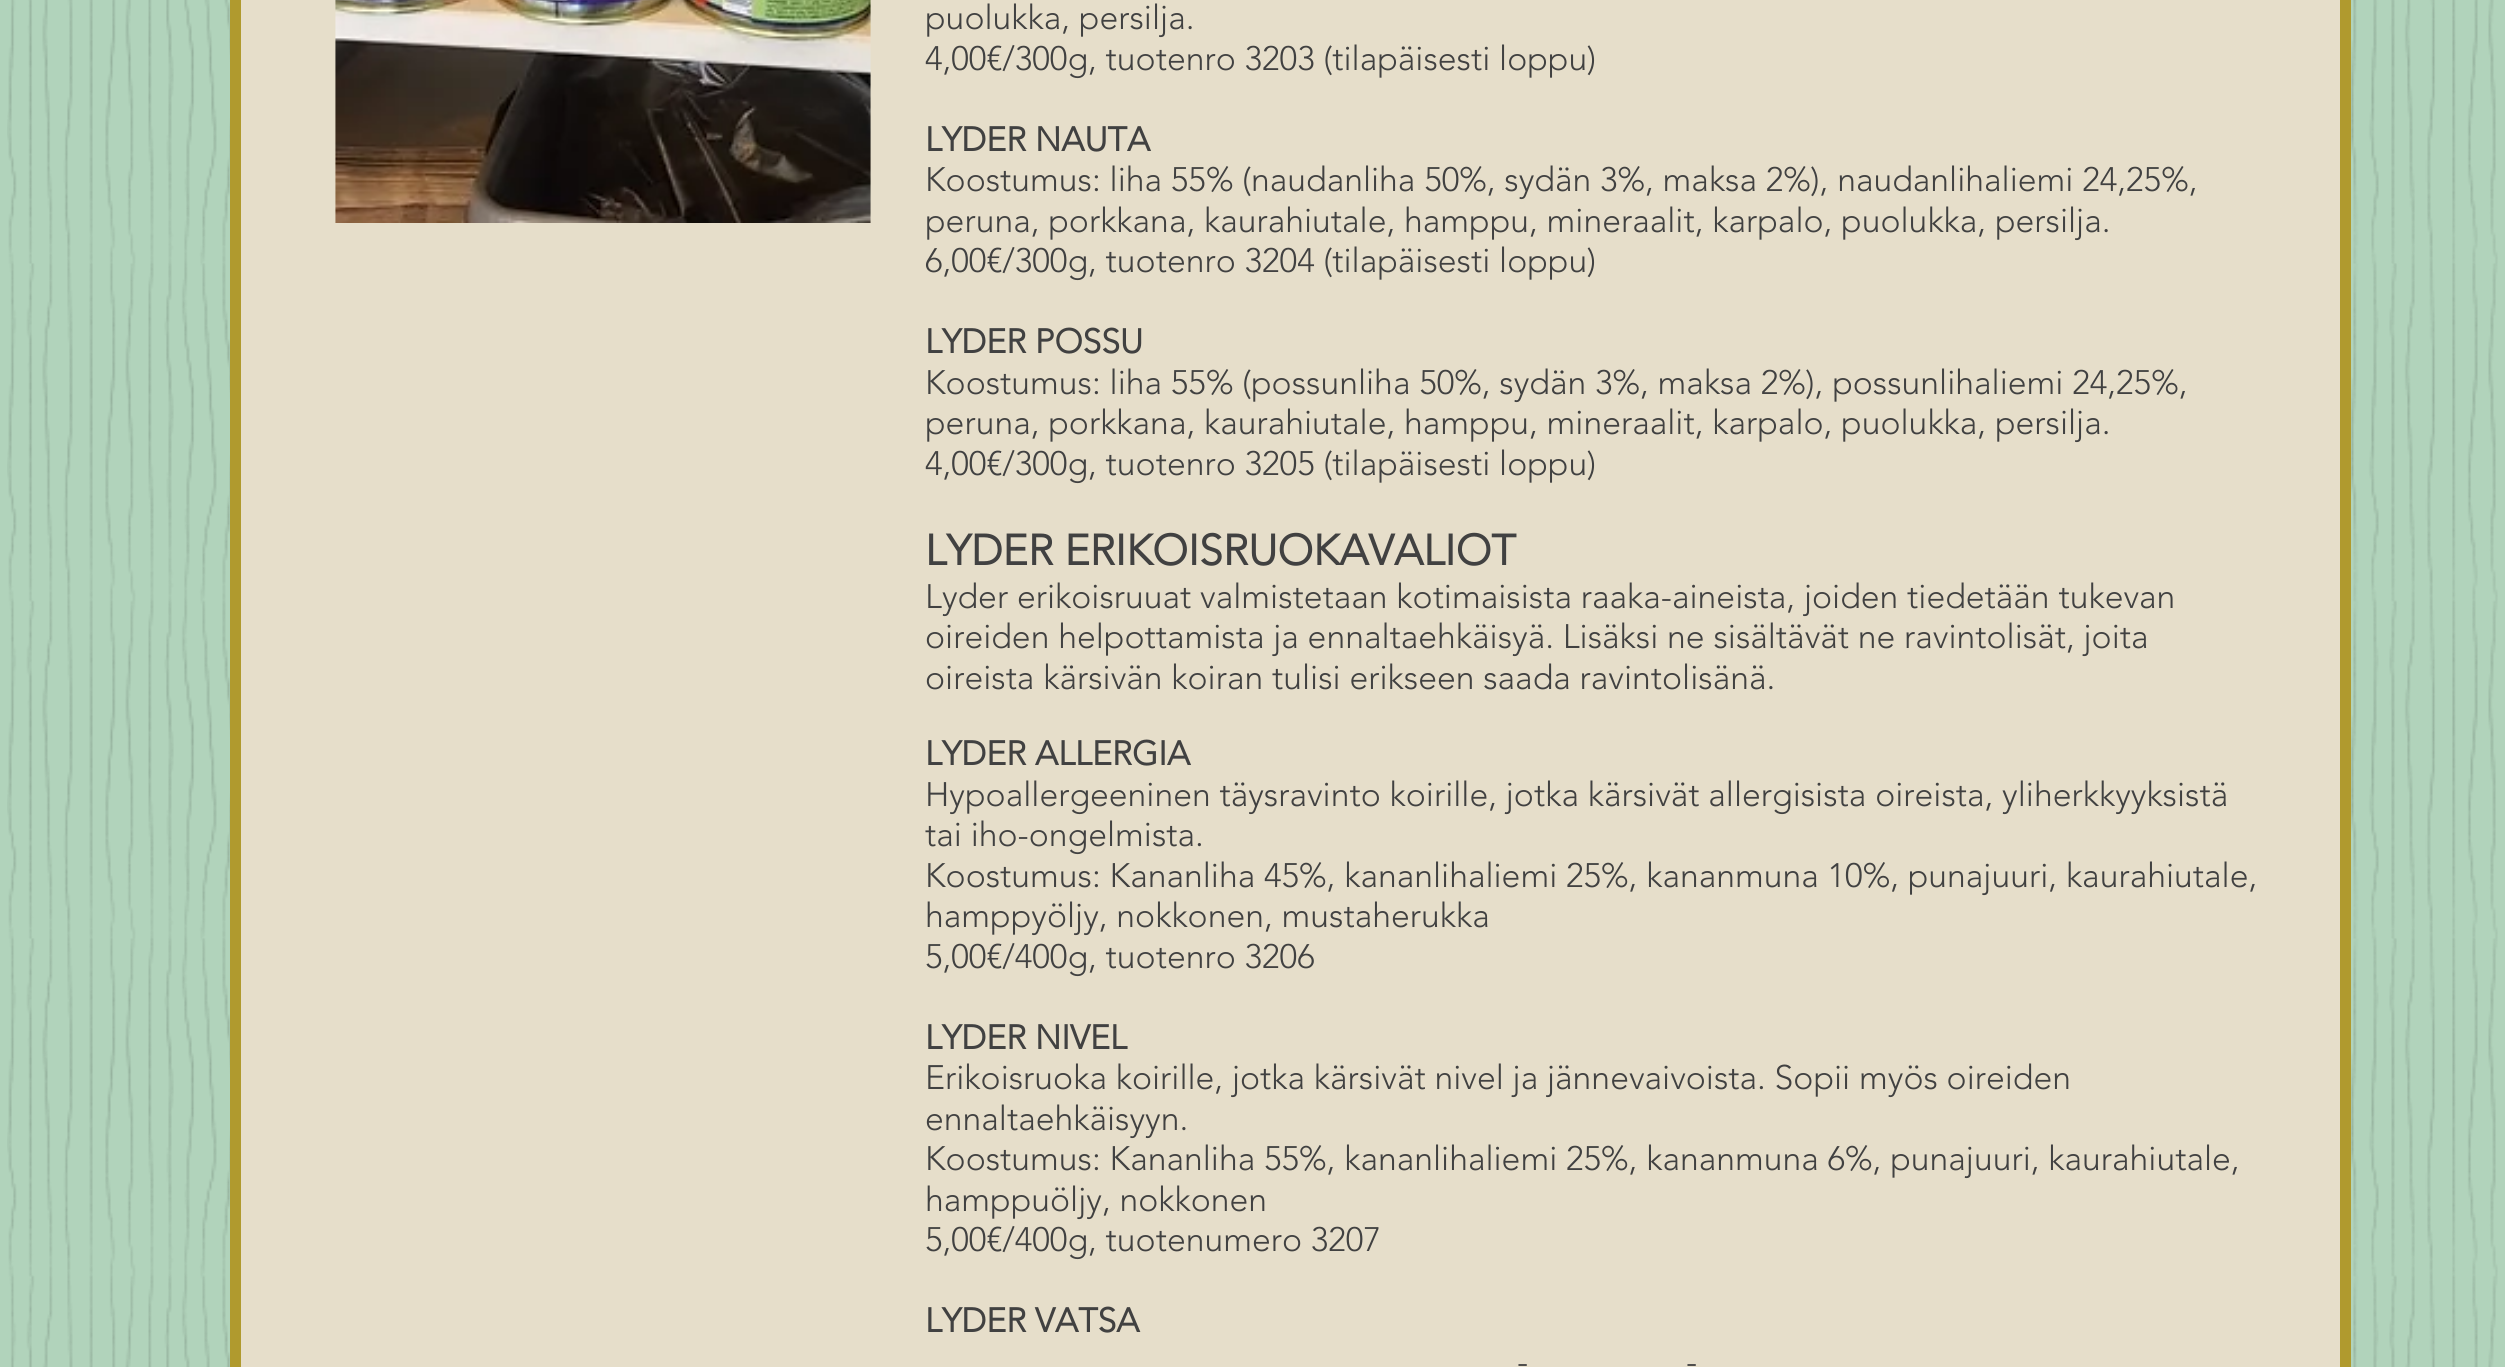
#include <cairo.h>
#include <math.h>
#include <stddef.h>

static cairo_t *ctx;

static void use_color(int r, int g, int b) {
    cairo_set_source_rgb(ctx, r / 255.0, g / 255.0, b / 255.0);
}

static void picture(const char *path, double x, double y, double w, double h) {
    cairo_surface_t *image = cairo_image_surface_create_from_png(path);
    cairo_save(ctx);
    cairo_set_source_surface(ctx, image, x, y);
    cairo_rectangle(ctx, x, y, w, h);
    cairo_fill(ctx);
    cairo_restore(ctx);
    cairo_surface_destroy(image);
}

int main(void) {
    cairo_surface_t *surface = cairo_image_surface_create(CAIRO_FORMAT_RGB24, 2505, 1367);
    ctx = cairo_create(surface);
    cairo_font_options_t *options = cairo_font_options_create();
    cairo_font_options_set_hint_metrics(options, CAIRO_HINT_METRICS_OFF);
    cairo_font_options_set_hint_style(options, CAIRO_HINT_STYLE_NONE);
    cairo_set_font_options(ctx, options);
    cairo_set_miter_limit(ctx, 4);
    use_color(177, 211, 187);
    cairo_paint(ctx);
    picture("img1.png", 7, 0, 2491, 1367);
    use_color(230, 222, 202);
    cairo_rectangle(ctx, 235.5, -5.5, 2110, 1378);
    cairo_fill_preserve(ctx);
    use_color(176, 154, 46);
    cairo_set_line_width(ctx, 11);
    cairo_stroke(ctx);
    picture("img2.png", 335, 0, 536, 223);
    cairo_select_font_face(ctx, "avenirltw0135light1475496 Light", CAIRO_FONT_SLANT_NORMAL, CAIRO_FONT_WEIGHT_NORMAL);
    cairo_set_font_size(ctx, 33.75);
    use_color(65, 65, 65);
    cairo_move_to(ctx, 925, 29);
    cairo_show_text(ctx, "puolukka, persilja.");
    cairo_move_to(ctx, 925, 70);
    cairo_show_text(ctx, "4,00€/300g, tuotenro 3203 (tilapäisesti loppu)");
    cairo_select_font_face(ctx, "avenirltw0135light1475496", CAIRO_FONT_SLANT_NORMAL, CAIRO_FONT_WEIGHT_BOLD);
    cairo_move_to(ctx, 925, 151);
    cairo_show_text(ctx, "LYDER NAUTA");
    cairo_select_font_face(ctx, "avenirltw0135light1475496 Light", CAIRO_FONT_SLANT_NORMAL, CAIRO_FONT_WEIGHT_NORMAL);
    cairo_move_to(ctx, 925, 191);
    cairo_show_text(ctx, "Koostumus: liha 55% (naudanliha 50%, sydän 3%, maksa 2%), naudanlihaliemi 24,25%,");
    cairo_move_to(ctx, 925, 232);
    cairo_show_text(ctx, "peruna, porkkana, kaurahiutale, hamppu, mineraalit, karpalo, puolukka, persilja.");
    cairo_move_to(ctx, 925, 272);
    cairo_show_text(ctx, "6,00€/300g, tuotenro 3204 (tilapäisesti loppu)");
    cairo_select_font_face(ctx, "avenirltw0135light1475496", CAIRO_FONT_SLANT_NORMAL, CAIRO_FONT_WEIGHT_BOLD);
    cairo_move_to(ctx, 925, 353);
    cairo_show_text(ctx, "LYDER POSSU");
    cairo_select_font_face(ctx, "avenirltw0135light1475496 Light", CAIRO_FONT_SLANT_NORMAL, CAIRO_FONT_WEIGHT_NORMAL);
    cairo_move_to(ctx, 925, 394);
    cairo_show_text(ctx, "Koostumus: liha 55% (possunliha 50%, sydän 3%, maksa 2%), possunlihaliemi 24,25%,");
    cairo_move_to(ctx, 925, 434);
    cairo_show_text(ctx, "peruna, porkkana, kaurahiutale, hamppu, mineraalit, karpalo, puolukka, persilja.");
    cairo_move_to(ctx, 925, 475);
    cairo_show_text(ctx, "4,00€/300g, tuotenro 3205 (tilapäisesti loppu)");
    cairo_select_font_face(ctx, "avenirltw0135light1475496", CAIRO_FONT_SLANT_NORMAL, CAIRO_FONT_WEIGHT_BOLD);
    cairo_set_font_size(ctx, 42.75);
    cairo_move_to(ctx, 925, 565);
    cairo_show_text(ctx, "LYDER ERIKOISRUOKAVALIOT");
    cairo_select_font_face(ctx, "avenirltw0135light1475496 Light", CAIRO_FONT_SLANT_NORMAL, CAIRO_FONT_WEIGHT_NORMAL);
    cairo_set_font_size(ctx, 33.75);
    cairo_move_to(ctx, 925, 608);
    cairo_show_text(ctx, "Lyder erikoisruuat valmistetaan kotimaisista raaka-aineista, joiden tiedetään tukevan");
    cairo_move_to(ctx, 925, 648);
    cairo_show_text(ctx, "oireiden helpottamista ja ennaltaehkäisyä. Lisäksi ne sisältävät ne ravintolisät, joita");
    cairo_move_to(ctx, 925, 689);
    cairo_show_text(ctx, "oireista kärsivän koiran tulisi erikseen saada ravintolisänä.");
    cairo_select_font_face(ctx, "avenirltw0135light1475496", CAIRO_FONT_SLANT_NORMAL, CAIRO_FONT_WEIGHT_BOLD);
    cairo_move_to(ctx, 925, 765);
    cairo_show_text(ctx, "LYDER ALLERGIA");
    cairo_select_font_face(ctx, "avenirltw0135light1475496 Light", CAIRO_FONT_SLANT_NORMAL, CAIRO_FONT_WEIGHT_NORMAL);
    cairo_move_to(ctx, 925, 806);
    cairo_show_text(ctx, "Hypoallergeeninen täysravinto koirille, jotka kärsivät allergisista oireista, yliherkkyyksistä");
    cairo_move_to(ctx, 925, 846);
    cairo_show_text(ctx, "tai iho-ongelmista.");
    cairo_move_to(ctx, 925, 887);
    cairo_show_text(ctx, "Koostumus: Kananliha 45%, kananlihaliemi 25%, kananmuna 10%, punajuuri, kaurahiutale,");
    cairo_move_to(ctx, 925, 927);
    cairo_show_text(ctx, "hamppyöljy, nokkonen, mustaherukka");
    cairo_move_to(ctx, 925, 968);
    cairo_show_text(ctx, "5,00€/400g, tuotenro 3206");
    cairo_select_font_face(ctx, "avenirltw0135light1475496", CAIRO_FONT_SLANT_NORMAL, CAIRO_FONT_WEIGHT_BOLD);
    cairo_move_to(ctx, 925, 1049);
    cairo_show_text(ctx, "LYDER NIVEL");
    cairo_select_font_face(ctx, "avenirltw0135light1475496 Light", CAIRO_FONT_SLANT_NORMAL, CAIRO_FONT_WEIGHT_NORMAL);
    cairo_move_to(ctx, 925, 1089);
    cairo_show_text(ctx, "Erikoisruoka koirille, jotka kärsivät nivel ja jännevaivoista. Sopii myös oireiden");
    cairo_move_to(ctx, 925, 1130);
    cairo_show_text(ctx, "ennaltaehkäisyyn.");
    cairo_move_to(ctx, 925, 1170);
    cairo_show_text(ctx, "Koostumus: Kananliha 55%, kananlihaliemi 25%, kananmuna 6%, punajuuri, kaurahiutale,");
    cairo_move_to(ctx, 925, 1211);
    cairo_show_text(ctx, "hamppuöljy, nokkonen");
    cairo_move_to(ctx, 925, 1251);
    cairo_show_text(ctx, "5,00€/400g, tuotenumero 3207");
    cairo_select_font_face(ctx, "avenirltw0135light1475496", CAIRO_FONT_SLANT_NORMAL, CAIRO_FONT_WEIGHT_BOLD);
    cairo_move_to(ctx, 925, 1332);
    cairo_show_text(ctx, "LYDER VATSA");
    cairo_select_font_face(ctx, "avenirltw0135light1475496 Light", CAIRO_FONT_SLANT_NORMAL, CAIRO_FONT_WEIGHT_NORMAL);
    cairo_move_to(ctx, 1517, 1373);
    cairo_show_text(ctx, "-");
    cairo_move_to(ctx, 1686, 1373);
    cairo_show_text(ctx, "-");
    cairo_surface_write_to_png(surface, "result.png");
    cairo_font_options_destroy(options);
    cairo_destroy(ctx);
    cairo_surface_destroy(surface);
    return 0;
}
